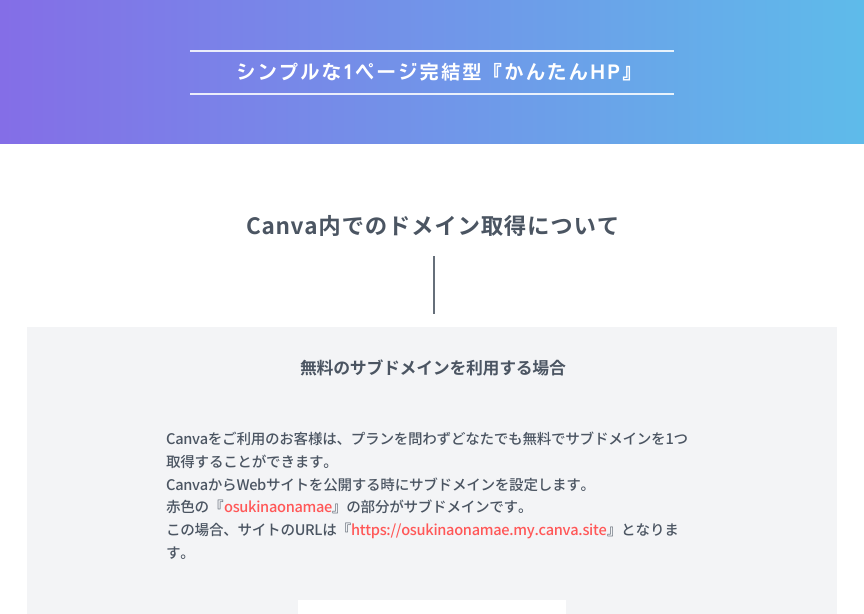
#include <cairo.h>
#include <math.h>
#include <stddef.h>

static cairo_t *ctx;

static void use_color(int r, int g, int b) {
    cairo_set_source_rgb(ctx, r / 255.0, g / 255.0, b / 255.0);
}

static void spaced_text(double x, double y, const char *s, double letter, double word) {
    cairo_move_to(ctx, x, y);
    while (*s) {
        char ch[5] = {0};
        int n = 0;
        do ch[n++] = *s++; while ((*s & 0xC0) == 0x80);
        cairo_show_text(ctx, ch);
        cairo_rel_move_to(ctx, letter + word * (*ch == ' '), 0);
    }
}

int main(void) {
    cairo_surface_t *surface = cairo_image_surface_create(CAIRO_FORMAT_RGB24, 864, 614);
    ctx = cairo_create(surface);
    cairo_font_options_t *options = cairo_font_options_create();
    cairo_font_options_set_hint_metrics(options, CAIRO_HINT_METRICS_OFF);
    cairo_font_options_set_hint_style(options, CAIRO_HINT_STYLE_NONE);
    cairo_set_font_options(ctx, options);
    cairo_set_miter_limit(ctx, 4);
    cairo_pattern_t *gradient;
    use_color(255, 255, 255);
    cairo_paint(ctx);
    gradient = cairo_pattern_create_linear(-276, 73, 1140, 72);
    cairo_pattern_add_color_stop_rgba(gradient, 0, 0.565, 0.333, 0.902, 1);
    cairo_pattern_add_color_stop_rgba(gradient, 1, 0.322, 0.831, 0.922, 1);
    cairo_set_source(ctx, gradient);
    cairo_pattern_destroy(gradient);
    cairo_rectangle(ctx, 0, 0, 864, 144);
    cairo_fill(ctx);
    gradient = cairo_pattern_create_linear(-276, 73, 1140, 72);
    cairo_pattern_add_color_stop_rgba(gradient, 0, 0.933, 0.902, 0.984, 1);
    cairo_pattern_add_color_stop_rgba(gradient, 1, 0.898, 0.976, 0.988, 1);
    cairo_set_source(ctx, gradient);
    cairo_pattern_destroy(gradient);
    cairo_rectangle(ctx, 190, 93, 484, 2);
    cairo_fill(ctx);
    cairo_rectangle(ctx, 190, 50, 484, 2);
    cairo_fill(ctx);
    cairo_select_font_face(ctx, "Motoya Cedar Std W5 SemiBold", CAIRO_FONT_SLANT_NORMAL, CAIRO_FONT_WEIGHT_NORMAL);
    cairo_set_font_size(ctx, 19.2);
    use_color(255, 255, 255);
    spaced_text(236, 79, "シンプルな1ページ完結型", 2.25, 0);
    spaced_text(483, 79, "『かんたんHP』", 2.25, 0);
    cairo_select_font_face(ctx, "Noto Sans JP", CAIRO_FONT_SLANT_NORMAL, CAIRO_FONT_WEIGHT_BOLD);
    cairo_set_font_size(ctx, 22.5);
    use_color(75, 85, 98);
    spaced_text(246, 234, "Canva内でのドメイン取得について", 0.7, 0);
    use_color(102, 111, 122);
    cairo_rectangle(ctx, 433, 256, 2, 58);
    cairo_fill(ctx);
    use_color(243, 244, 246);
    cairo_rectangle(ctx, 27, 327, 810, 287);
    cairo_fill(ctx);
    cairo_set_font_size(ctx, 16.9);
    use_color(75, 85, 98);
    spaced_text(300, 374, "無料のサブドメインを利用する場合", -0.3, 0);
    cairo_select_font_face(ctx, "Noto Sans JP Medium", CAIRO_FONT_SLANT_NORMAL, CAIRO_FONT_WEIGHT_NORMAL);
    cairo_set_font_size(ctx, 14.6);
    spaced_text(166, 444, "Canvaをご利用のお客様は、プランを問わずどなたでも無料でサブドメインを1つ", -0.3, 0);
    spaced_text(166, 467, "取得することができます。", -0.3, 0);
    spaced_text(166, 490, "CanvaからWebサイトを公開する時にサブドメインを設定します。", -0.3, 0);
    spaced_text(166, 512, "赤色の『", -0.3, 0);
    use_color(255, 87, 87);
    spaced_text(224, 512, "osukinaonamae", -0.3, 0);
    use_color(75, 85, 98);
    spaced_text(332, 512, "』の部分がサブドメインです。", -0.3, 0);
    spaced_text(166, 535, "この場合、サイトのURLは『", -0.3, 0);
    use_color(255, 87, 87);
    spaced_text(351, 535, "https://osukinaonamae.my.canva.site", -0.3, 0);
    use_color(75, 85, 98);
    spaced_text(607, 535, "』となりま", -0.3, 0);
    spaced_text(166, 558, "す。", -0.3, 0);
    use_color(255, 255, 255);
    cairo_rectangle(ctx, 298, 600, 268, 14);
    cairo_fill(ctx);
    cairo_surface_write_to_png(surface, "result.png");
    cairo_font_options_destroy(options);
    cairo_destroy(ctx);
    cairo_surface_destroy(surface);
    return 0;
}
